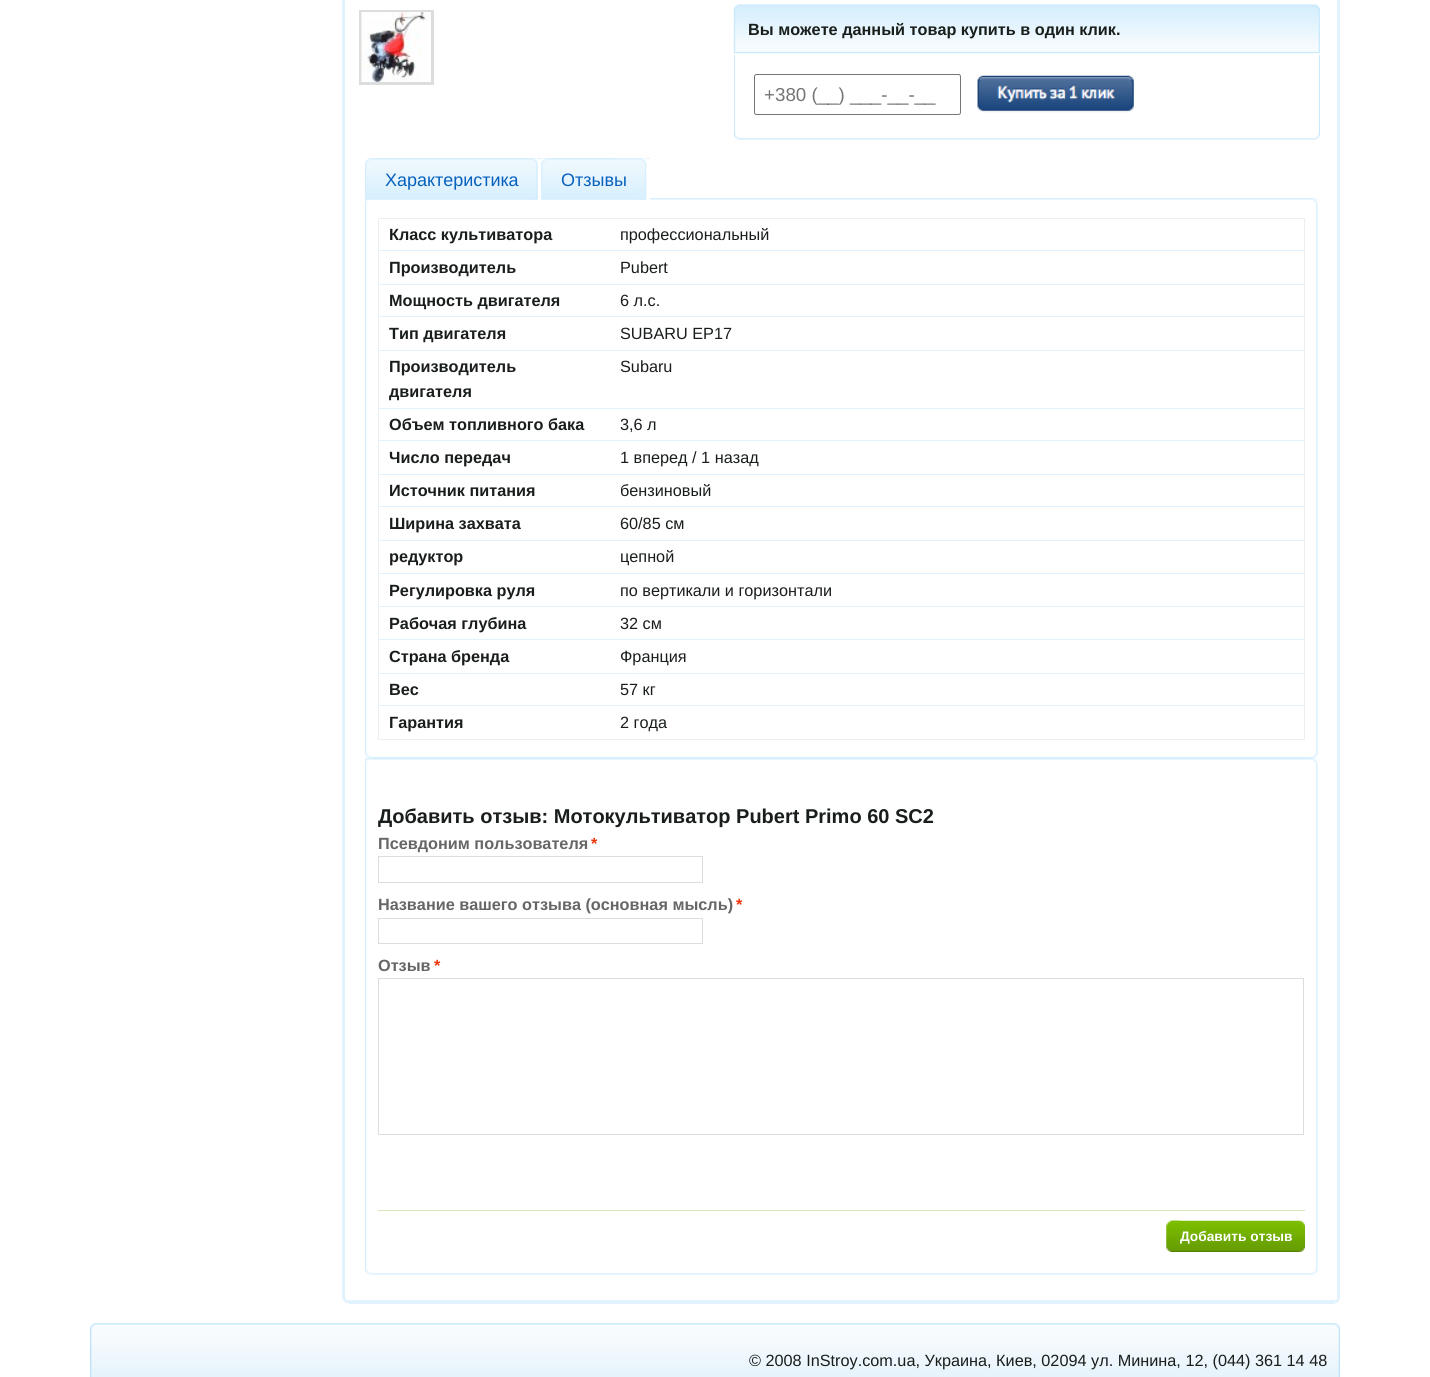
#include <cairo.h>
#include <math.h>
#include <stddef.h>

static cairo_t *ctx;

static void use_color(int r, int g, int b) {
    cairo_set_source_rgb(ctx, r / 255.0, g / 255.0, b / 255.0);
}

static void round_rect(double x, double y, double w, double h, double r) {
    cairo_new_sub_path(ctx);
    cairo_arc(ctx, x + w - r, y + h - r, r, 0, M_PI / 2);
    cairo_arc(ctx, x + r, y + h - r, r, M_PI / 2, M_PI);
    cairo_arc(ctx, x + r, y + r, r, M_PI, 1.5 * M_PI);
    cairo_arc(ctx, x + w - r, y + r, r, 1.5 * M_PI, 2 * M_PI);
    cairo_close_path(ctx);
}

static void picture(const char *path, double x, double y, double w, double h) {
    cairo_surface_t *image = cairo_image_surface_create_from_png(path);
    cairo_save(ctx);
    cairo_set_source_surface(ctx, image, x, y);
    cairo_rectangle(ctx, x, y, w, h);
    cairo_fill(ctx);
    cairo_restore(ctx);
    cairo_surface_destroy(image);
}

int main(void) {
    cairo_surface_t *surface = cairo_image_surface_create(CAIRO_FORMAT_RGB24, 1430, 1377);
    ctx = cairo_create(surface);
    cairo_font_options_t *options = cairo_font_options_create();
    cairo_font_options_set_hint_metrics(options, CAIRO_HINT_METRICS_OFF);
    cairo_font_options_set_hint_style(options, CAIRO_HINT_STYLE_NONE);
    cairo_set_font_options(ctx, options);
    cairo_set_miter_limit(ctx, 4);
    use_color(255, 255, 255);
    cairo_paint(ctx);
    use_color(223, 242, 253);
    cairo_rectangle(ctx, 342, 0, 3, 1297);
    cairo_fill(ctx);
    cairo_rectangle(ctx, 1337, 0, 3, 1297);
    cairo_fill(ctx);
    cairo_rectangle(ctx, 360.5, 11.5, 72, 72);
    use_color(221, 221, 221);
    cairo_set_line_width(ctx, 3);
    cairo_stroke(ctx);
    picture("img1.png", 361, 12, 70, 70);
    picture("img2.png", 733, 132, 587, 8);
    picture("img3.png", 733, 4, 587, 50);
    cairo_select_font_face(ctx, "Liberation Sans", CAIRO_FONT_SLANT_NORMAL, CAIRO_FONT_WEIGHT_BOLD);
    cairo_set_font_size(ctx, 16.25);
    use_color(25, 30, 27);
    cairo_move_to(ctx, 748, 35);
    cairo_show_text(ctx, "Вы можете данный товар купить в один клик.");
    use_color(201, 233, 252);
    cairo_rectangle(ctx, 1319, 55, 1, 79);
    cairo_fill(ctx);
    cairo_rectangle(ctx, 734, 55, 1, 79);
    cairo_fill(ctx);
    round_rect(754.5, 74.5, 206, 40, 2);
    use_color(118, 118, 118);
    cairo_set_line_width(ctx, 1);
    cairo_stroke(ctx);
    cairo_select_font_face(ctx, "Liberation Sans", CAIRO_FONT_SLANT_NORMAL, CAIRO_FONT_WEIGHT_NORMAL);
    cairo_set_font_size(ctx, 18.75);
    use_color(117, 117, 117);
    cairo_move_to(ctx, 764, 101);
    cairo_show_text(ctx, "+380 (__) ___-__-__");
    picture("img4.png", 977, 75, 157, 38);
    picture("img5.png", 365, 158, 250, 1);
    picture("img10.png", 365, 198, 953, 7);
    picture("img6.png", 365, 158, 177, 42);
    use_color(255, 255, 255);
    cairo_rectangle(ctx, 538, 159, 4, 42);
    cairo_fill(ctx);
    picture("img7.png", 530, 158, 8, 42);
    cairo_set_font_size(ctx, 18);
    use_color(6, 97, 189);
    cairo_move_to(ctx, 385, 186);
    cairo_show_text(ctx, "Характеристика");
    picture("img8.png", 541, 158, 109, 42);
    use_color(255, 255, 255);
    cairo_rectangle(ctx, 646, 159, 4, 42);
    cairo_fill(ctx);
    picture("img9.png", 639, 158, 8, 42);
    use_color(6, 97, 189);
    cairo_move_to(ctx, 561, 186);
    cairo_show_text(ctx, "Отзывы");
    picture("img11.png", 1312, 198, 6, 7);
    use_color(255, 255, 255);
    cairo_rectangle(ctx, 650, 199, 661, 1);
    cairo_fill(ctx);
    picture("img12.png", 650, 198, 661, 2);
    picture("img13.png", 365, 204, 2, 548);
    picture("img14.png", 1316, 204, 2, 548);
    cairo_rectangle(ctx, 378.5, 218.5, 926, 521);
    use_color(238, 238, 238);
    cairo_stroke(ctx);
    use_color(223, 242, 253);
    cairo_rectangle(ctx, 379, 250, 925, 1);
    cairo_fill(ctx);
    cairo_select_font_face(ctx, "Liberation Sans", CAIRO_FONT_SLANT_NORMAL, CAIRO_FONT_WEIGHT_BOLD);
    cairo_set_font_size(ctx, 16.25);
    use_color(25, 30, 27);
    cairo_move_to(ctx, 389, 240);
    cairo_show_text(ctx, "Класс культиватора");
    cairo_select_font_face(ctx, "Liberation Sans", CAIRO_FONT_SLANT_NORMAL, CAIRO_FONT_WEIGHT_NORMAL);
    cairo_move_to(ctx, 620, 240);
    cairo_show_text(ctx, "профессиональный");
    use_color(223, 242, 253);
    cairo_rectangle(ctx, 379, 284, 925, 1);
    cairo_fill(ctx);
    cairo_select_font_face(ctx, "Liberation Sans", CAIRO_FONT_SLANT_NORMAL, CAIRO_FONT_WEIGHT_BOLD);
    use_color(25, 30, 27);
    cairo_move_to(ctx, 389, 273);
    cairo_show_text(ctx, "Производитель");
    cairo_select_font_face(ctx, "Liberation Sans", CAIRO_FONT_SLANT_NORMAL, CAIRO_FONT_WEIGHT_NORMAL);
    cairo_move_to(ctx, 620, 273);
    cairo_show_text(ctx, "Pubert");
    use_color(223, 242, 253);
    cairo_rectangle(ctx, 379, 316, 925, 1);
    cairo_fill(ctx);
    cairo_select_font_face(ctx, "Liberation Sans", CAIRO_FONT_SLANT_NORMAL, CAIRO_FONT_WEIGHT_BOLD);
    use_color(25, 30, 27);
    cairo_move_to(ctx, 389, 306);
    cairo_show_text(ctx, "Мощность двигателя");
    cairo_select_font_face(ctx, "Liberation Sans", CAIRO_FONT_SLANT_NORMAL, CAIRO_FONT_WEIGHT_NORMAL);
    cairo_move_to(ctx, 620, 306);
    cairo_show_text(ctx, "6 л.с.");
    use_color(223, 242, 253);
    cairo_rectangle(ctx, 379, 350, 925, 1);
    cairo_fill(ctx);
    cairo_select_font_face(ctx, "Liberation Sans", CAIRO_FONT_SLANT_NORMAL, CAIRO_FONT_WEIGHT_BOLD);
    use_color(25, 30, 27);
    cairo_move_to(ctx, 389, 339);
    cairo_show_text(ctx, "Тип двигателя");
    cairo_select_font_face(ctx, "Liberation Sans", CAIRO_FONT_SLANT_NORMAL, CAIRO_FONT_WEIGHT_NORMAL);
    cairo_move_to(ctx, 620, 339);
    cairo_show_text(ctx, "SUBARU EP17");
    use_color(223, 242, 253);
    cairo_rectangle(ctx, 379, 408, 925, 1);
    cairo_fill(ctx);
    cairo_select_font_face(ctx, "Liberation Sans", CAIRO_FONT_SLANT_NORMAL, CAIRO_FONT_WEIGHT_BOLD);
    use_color(25, 30, 27);
    cairo_move_to(ctx, 389, 372);
    cairo_show_text(ctx, "Производитель");
    cairo_move_to(ctx, 389, 397);
    cairo_show_text(ctx, "двигателя");
    cairo_select_font_face(ctx, "Liberation Sans", CAIRO_FONT_SLANT_NORMAL, CAIRO_FONT_WEIGHT_NORMAL);
    cairo_move_to(ctx, 620, 372);
    cairo_show_text(ctx, "Subaru");
    use_color(223, 242, 253);
    cairo_rectangle(ctx, 379, 440, 925, 1);
    cairo_fill(ctx);
    cairo_select_font_face(ctx, "Liberation Sans", CAIRO_FONT_SLANT_NORMAL, CAIRO_FONT_WEIGHT_BOLD);
    use_color(25, 30, 27);
    cairo_move_to(ctx, 389, 430);
    cairo_show_text(ctx, "Объем топливного бака");
    cairo_select_font_face(ctx, "Liberation Sans", CAIRO_FONT_SLANT_NORMAL, CAIRO_FONT_WEIGHT_NORMAL);
    cairo_move_to(ctx, 620, 430);
    cairo_show_text(ctx, "3,6 л");
    use_color(223, 242, 253);
    cairo_rectangle(ctx, 379, 474, 925, 1);
    cairo_fill(ctx);
    cairo_select_font_face(ctx, "Liberation Sans", CAIRO_FONT_SLANT_NORMAL, CAIRO_FONT_WEIGHT_BOLD);
    use_color(25, 30, 27);
    cairo_move_to(ctx, 389, 463);
    cairo_show_text(ctx, "Число передач");
    cairo_select_font_face(ctx, "Liberation Sans", CAIRO_FONT_SLANT_NORMAL, CAIRO_FONT_WEIGHT_NORMAL);
    cairo_move_to(ctx, 620, 463);
    cairo_show_text(ctx, "1 вперед / 1 назад");
    use_color(223, 242, 253);
    cairo_rectangle(ctx, 379, 506, 925, 1);
    cairo_fill(ctx);
    cairo_select_font_face(ctx, "Liberation Sans", CAIRO_FONT_SLANT_NORMAL, CAIRO_FONT_WEIGHT_BOLD);
    use_color(25, 30, 27);
    cairo_move_to(ctx, 389, 496);
    cairo_show_text(ctx, "Источник питания");
    cairo_select_font_face(ctx, "Liberation Sans", CAIRO_FONT_SLANT_NORMAL, CAIRO_FONT_WEIGHT_NORMAL);
    cairo_move_to(ctx, 620, 496);
    cairo_show_text(ctx, "бензиновый");
    use_color(223, 242, 253);
    cairo_rectangle(ctx, 379, 540, 925, 1);
    cairo_fill(ctx);
    cairo_select_font_face(ctx, "Liberation Sans", CAIRO_FONT_SLANT_NORMAL, CAIRO_FONT_WEIGHT_BOLD);
    use_color(25, 30, 27);
    cairo_move_to(ctx, 389, 529);
    cairo_show_text(ctx, "Ширина захвата");
    cairo_select_font_face(ctx, "Liberation Sans", CAIRO_FONT_SLANT_NORMAL, CAIRO_FONT_WEIGHT_NORMAL);
    cairo_move_to(ctx, 620, 529);
    cairo_show_text(ctx, "60/85 см");
    use_color(223, 242, 253);
    cairo_rectangle(ctx, 379, 573, 925, 1);
    cairo_fill(ctx);
    cairo_select_font_face(ctx, "Liberation Sans", CAIRO_FONT_SLANT_NORMAL, CAIRO_FONT_WEIGHT_BOLD);
    use_color(25, 30, 27);
    cairo_move_to(ctx, 389, 562);
    cairo_show_text(ctx, "редуктор");
    cairo_select_font_face(ctx, "Liberation Sans", CAIRO_FONT_SLANT_NORMAL, CAIRO_FONT_WEIGHT_NORMAL);
    cairo_move_to(ctx, 620, 562);
    cairo_show_text(ctx, "цепной");
    use_color(223, 242, 253);
    cairo_rectangle(ctx, 379, 606, 925, 1);
    cairo_fill(ctx);
    cairo_select_font_face(ctx, "Liberation Sans", CAIRO_FONT_SLANT_NORMAL, CAIRO_FONT_WEIGHT_BOLD);
    use_color(25, 30, 27);
    cairo_move_to(ctx, 389, 596);
    cairo_show_text(ctx, "Регулировка руля");
    cairo_select_font_face(ctx, "Liberation Sans", CAIRO_FONT_SLANT_NORMAL, CAIRO_FONT_WEIGHT_NORMAL);
    cairo_move_to(ctx, 620, 596);
    cairo_show_text(ctx, "по вертикали и горизонтали");
    use_color(223, 242, 253);
    cairo_rectangle(ctx, 379, 639, 925, 1);
    cairo_fill(ctx);
    cairo_select_font_face(ctx, "Liberation Sans", CAIRO_FONT_SLANT_NORMAL, CAIRO_FONT_WEIGHT_BOLD);
    use_color(25, 30, 27);
    cairo_move_to(ctx, 389, 629);
    cairo_show_text(ctx, "Рабочая глубина");
    cairo_select_font_face(ctx, "Liberation Sans", CAIRO_FONT_SLANT_NORMAL, CAIRO_FONT_WEIGHT_NORMAL);
    cairo_move_to(ctx, 620, 629);
    cairo_show_text(ctx, "32 см");
    use_color(223, 242, 253);
    cairo_rectangle(ctx, 379, 673, 925, 1);
    cairo_fill(ctx);
    cairo_select_font_face(ctx, "Liberation Sans", CAIRO_FONT_SLANT_NORMAL, CAIRO_FONT_WEIGHT_BOLD);
    use_color(25, 30, 27);
    cairo_move_to(ctx, 389, 662);
    cairo_show_text(ctx, "Страна бренда");
    cairo_select_font_face(ctx, "Liberation Sans", CAIRO_FONT_SLANT_NORMAL, CAIRO_FONT_WEIGHT_NORMAL);
    cairo_move_to(ctx, 620, 662);
    cairo_show_text(ctx, "Франция");
    use_color(223, 242, 253);
    cairo_rectangle(ctx, 379, 705, 925, 1);
    cairo_fill(ctx);
    cairo_select_font_face(ctx, "Liberation Sans", CAIRO_FONT_SLANT_NORMAL, CAIRO_FONT_WEIGHT_BOLD);
    use_color(25, 30, 27);
    cairo_move_to(ctx, 389, 695);
    cairo_show_text(ctx, "Вес");
    cairo_select_font_face(ctx, "Liberation Sans", CAIRO_FONT_SLANT_NORMAL, CAIRO_FONT_WEIGHT_NORMAL);
    cairo_move_to(ctx, 620, 695);
    cairo_show_text(ctx, "57 кг");
    cairo_select_font_face(ctx, "Liberation Sans", CAIRO_FONT_SLANT_NORMAL, CAIRO_FONT_WEIGHT_BOLD);
    cairo_move_to(ctx, 389, 728);
    cairo_show_text(ctx, "Гарантия");
    cairo_select_font_face(ctx, "Liberation Sans", CAIRO_FONT_SLANT_NORMAL, CAIRO_FONT_WEIGHT_NORMAL);
    cairo_move_to(ctx, 620, 728);
    cairo_show_text(ctx, "2 года");
    picture("img15.png", 365, 752, 7, 7);
    picture("img16.png", 1311, 752, 7, 7);
    picture("img18.png", 365, 758, 953, 7);
    use_color(255, 255, 255);
    cairo_rectangle(ctx, 371, 757, 940, 3);
    cairo_fill(ctx);
    picture("img17.png", 371, 757, 941, 2);
    picture("img19.png", 1312, 758, 6, 7);
    picture("img20.png", 371, 758, 940, 2);
    picture("img21.png", 365, 764, 2, 505);
    picture("img22.png", 1316, 764, 2, 505);
    cairo_select_font_face(ctx, "Liberation Sans", CAIRO_FONT_SLANT_NORMAL, CAIRO_FONT_WEIGHT_BOLD);
    cairo_set_font_size(ctx, 20);
    use_color(25, 30, 27);
    cairo_move_to(ctx, 378, 823);
    cairo_show_text(ctx, "Добавить отзыв: Мотокультиватор Pubert Primo 60 SC2");
    cairo_set_font_size(ctx, 16.25);
    use_color(102, 102, 102);
    cairo_move_to(ctx, 378, 849);
    cairo_show_text(ctx, "Псевдоним пользователя");
    use_color(235, 52, 10);
    cairo_move_to(ctx, 591, 849);
    cairo_show_text(ctx, "*");
    cairo_rectangle(ctx, 378.5, 856.5, 324, 26);
    use_color(221, 221, 221);
    cairo_stroke(ctx);
    use_color(102, 102, 102);
    cairo_move_to(ctx, 378, 910);
    cairo_show_text(ctx, "Название вашего отзыва (основная мысль)");
    use_color(235, 52, 10);
    cairo_move_to(ctx, 736, 910);
    cairo_show_text(ctx, "*");
    cairo_rectangle(ctx, 378.5, 918.5, 324, 25);
    use_color(221, 221, 221);
    cairo_stroke(ctx);
    use_color(102, 102, 102);
    cairo_move_to(ctx, 378, 971);
    cairo_show_text(ctx, "Отзыв");
    use_color(235, 52, 10);
    cairo_move_to(ctx, 434, 971);
    cairo_show_text(ctx, "*");
    cairo_rectangle(ctx, 378.5, 978.5, 925, 156);
    use_color(221, 221, 221);
    cairo_stroke(ctx);
    use_color(213, 230, 183);
    cairo_rectangle(ctx, 378, 1210, 927, 1);
    cairo_fill(ctx);
    picture("img23.png", 1166, 1220, 15, 32);
    picture("img24.png", 1171, 1220, 134, 32);
    cairo_set_font_size(ctx, 13.75);
    use_color(255, 255, 255);
    cairo_move_to(ctx, 1180, 1241);
    cairo_show_text(ctx, "Добавить отзыв");
    picture("img25.png", 365, 1268, 7, 7);
    picture("img26.png", 1311, 1268, 7, 7);
    cairo_rectangle(ctx, 371, 1273, 1, 2);
    cairo_fill(ctx);
    picture("img27.png", 371, 1273, 940, 2);
    picture("img28.png", 342, 1297, 8, 7);
    picture("img29.png", 1332, 1297, 8, 7);
    use_color(223, 242, 253);
    cairo_rectangle(ctx, 349, 1300, 985, 4);
    cairo_fill(ctx);
    picture("img30.png", 90, 1323, 1250, 54);
    cairo_select_font_face(ctx, "Liberation Sans", CAIRO_FONT_SLANT_NORMAL, CAIRO_FONT_WEIGHT_NORMAL);
    cairo_set_font_size(ctx, 16.25);
    use_color(25, 30, 27);
    cairo_move_to(ctx, 749, 1366);
    cairo_show_text(ctx, "© 2008 InStroy.com.ua, Украина, Киев, 02094 ул. Минина, 12, (044) 361 14 48");
    cairo_surface_write_to_png(surface, "result.png");
    cairo_font_options_destroy(options);
    cairo_destroy(ctx);
    cairo_surface_destroy(surface);
    return 0;
}
